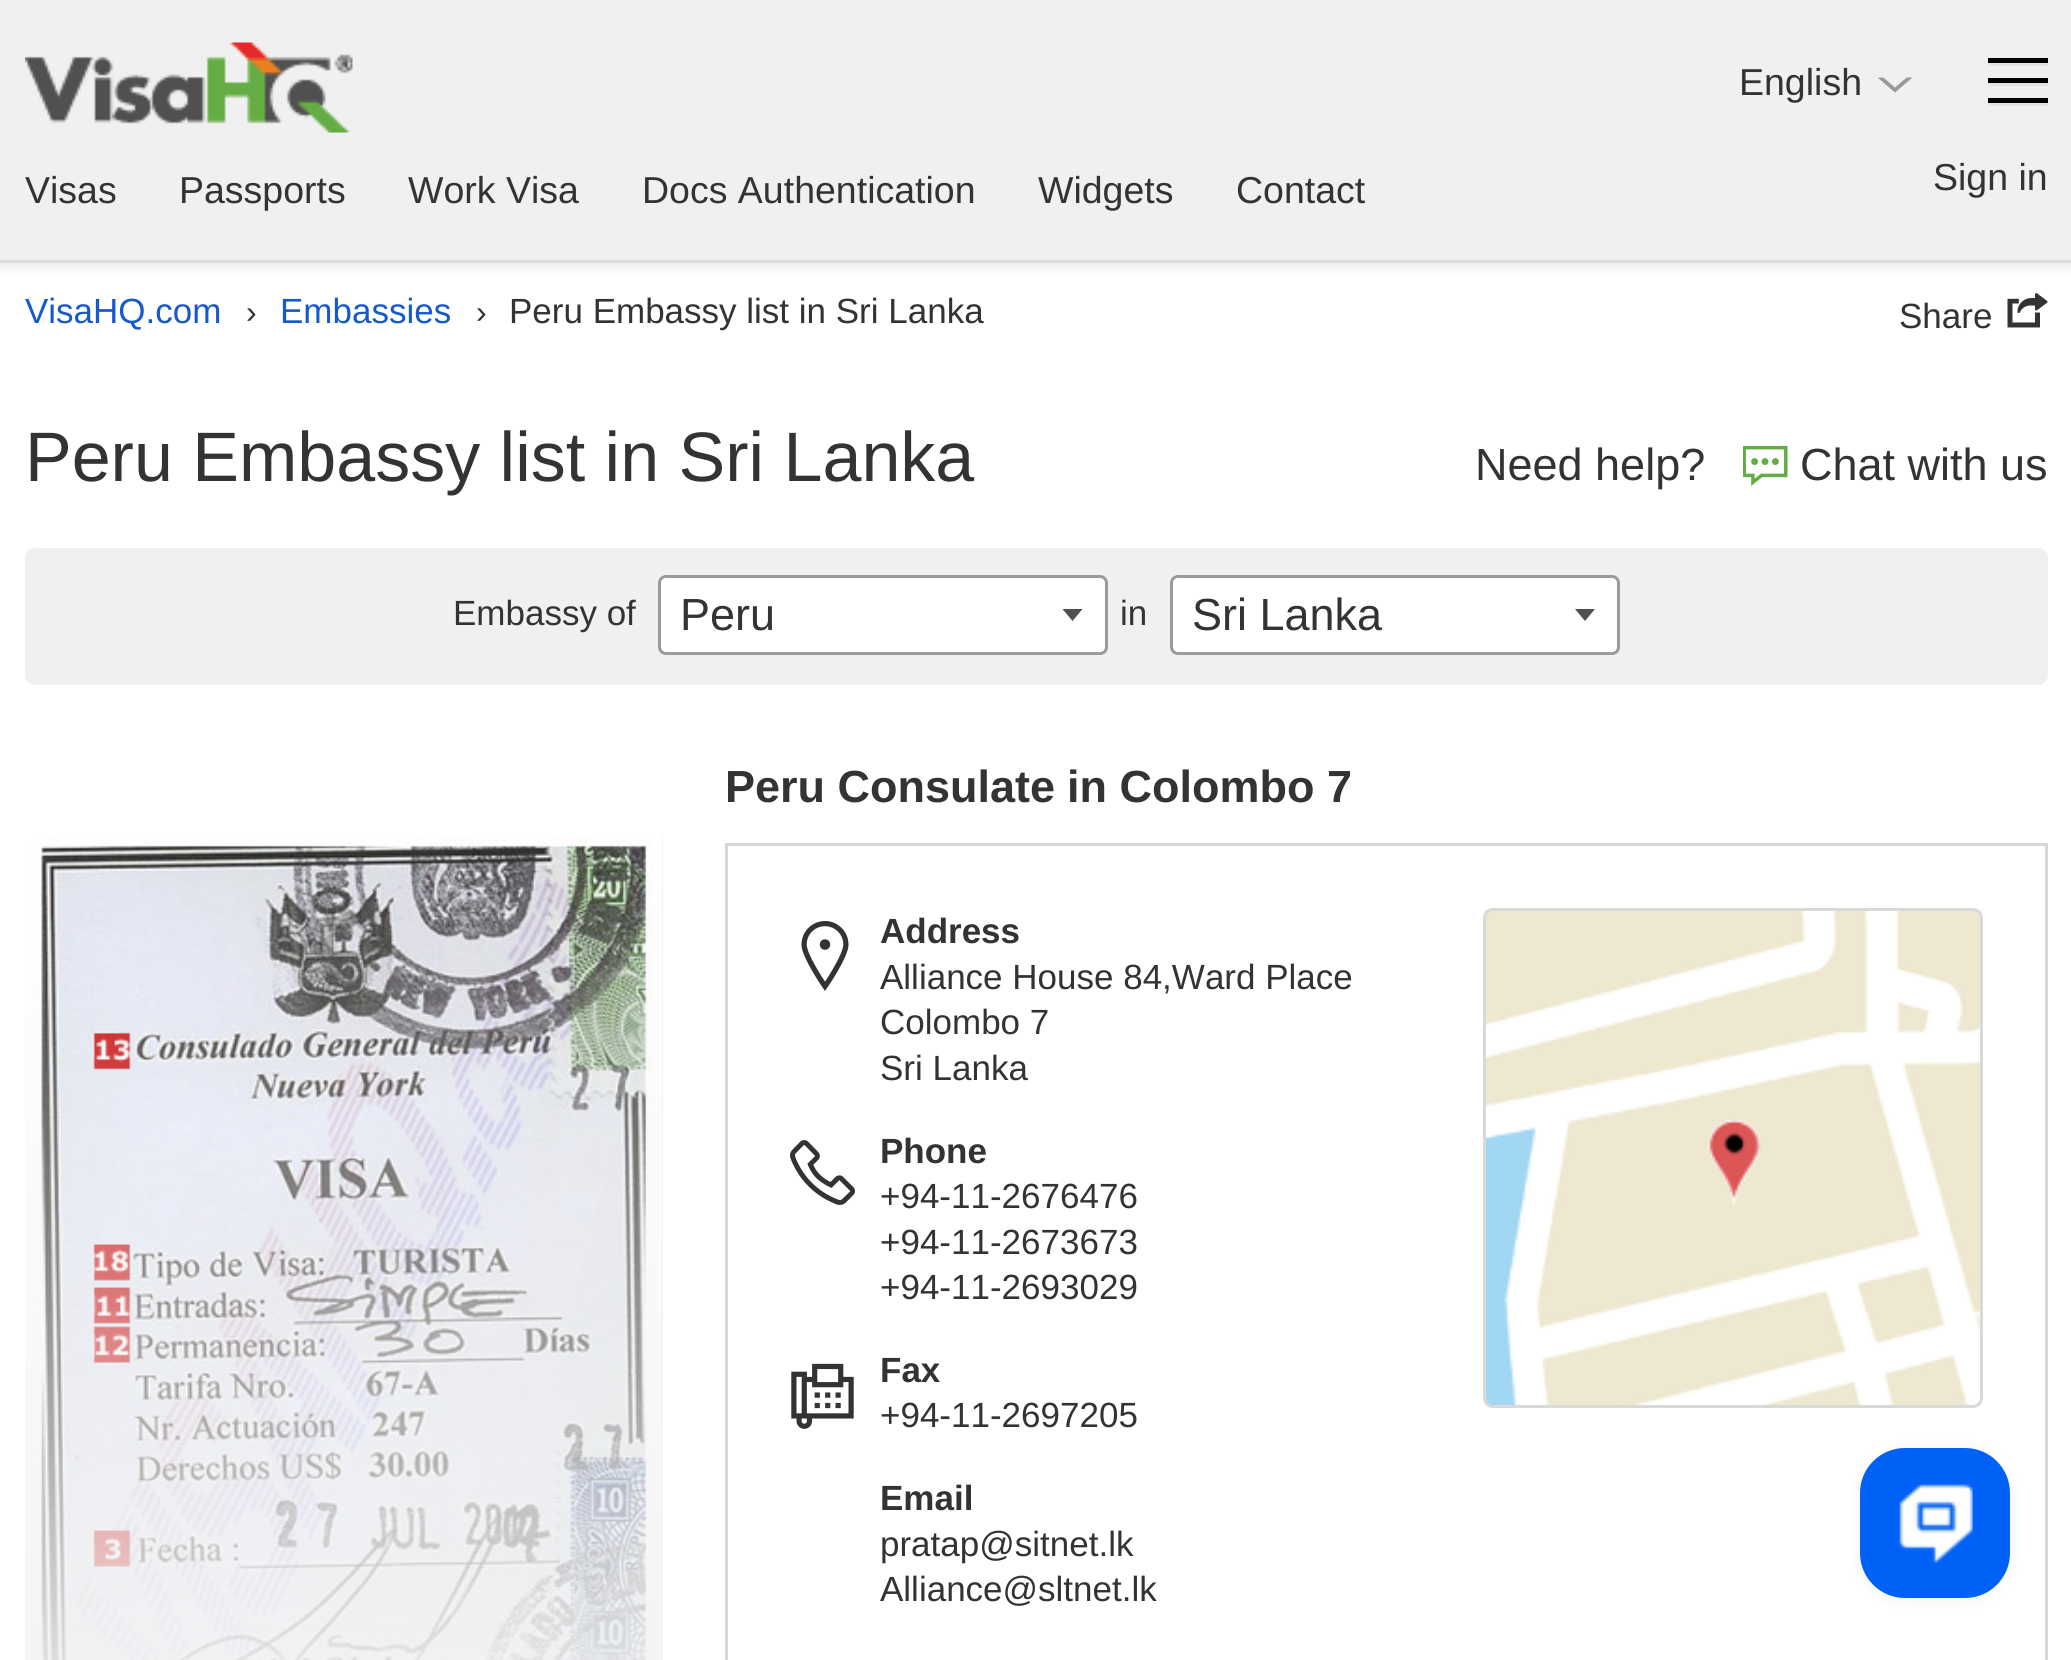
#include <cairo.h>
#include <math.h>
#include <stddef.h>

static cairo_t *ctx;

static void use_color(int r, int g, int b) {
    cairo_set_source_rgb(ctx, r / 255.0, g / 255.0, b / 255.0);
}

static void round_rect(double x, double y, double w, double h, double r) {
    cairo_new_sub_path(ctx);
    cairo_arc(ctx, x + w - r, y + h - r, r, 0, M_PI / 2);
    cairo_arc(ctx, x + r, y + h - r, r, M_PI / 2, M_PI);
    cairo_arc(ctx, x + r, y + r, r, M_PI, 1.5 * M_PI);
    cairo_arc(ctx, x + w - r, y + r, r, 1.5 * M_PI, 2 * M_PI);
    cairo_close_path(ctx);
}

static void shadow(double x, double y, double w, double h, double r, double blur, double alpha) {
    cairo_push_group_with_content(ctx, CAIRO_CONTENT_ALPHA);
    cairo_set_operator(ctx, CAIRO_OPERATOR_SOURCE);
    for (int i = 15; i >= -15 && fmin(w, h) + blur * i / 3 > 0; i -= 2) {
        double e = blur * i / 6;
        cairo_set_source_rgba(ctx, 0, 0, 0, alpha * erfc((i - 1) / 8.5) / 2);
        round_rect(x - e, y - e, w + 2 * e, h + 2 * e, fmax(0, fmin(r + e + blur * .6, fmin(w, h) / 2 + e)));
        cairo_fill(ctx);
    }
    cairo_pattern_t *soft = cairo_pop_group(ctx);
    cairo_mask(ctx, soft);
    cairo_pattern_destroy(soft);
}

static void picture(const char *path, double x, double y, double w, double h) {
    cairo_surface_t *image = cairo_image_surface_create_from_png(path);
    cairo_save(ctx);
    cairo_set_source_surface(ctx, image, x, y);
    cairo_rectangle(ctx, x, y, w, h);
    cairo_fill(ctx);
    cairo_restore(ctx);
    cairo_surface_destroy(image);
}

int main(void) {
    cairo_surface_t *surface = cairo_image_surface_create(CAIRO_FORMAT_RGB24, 2071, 1660);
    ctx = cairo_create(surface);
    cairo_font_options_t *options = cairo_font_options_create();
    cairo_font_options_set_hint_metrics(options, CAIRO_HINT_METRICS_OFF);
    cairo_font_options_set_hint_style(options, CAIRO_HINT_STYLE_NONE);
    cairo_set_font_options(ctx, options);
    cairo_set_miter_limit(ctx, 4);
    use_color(255, 255, 255);
    cairo_paint(ctx);
    use_color(220, 220, 220);
    shadow(0, 0, 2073, 263, 0, 7.5, 1);
    use_color(240, 240, 240);
    cairo_rectangle(ctx, 0, 0, 2071, 260);
    cairo_fill(ctx);
    use_color(220, 220, 220);
    cairo_rectangle(ctx, 0, 260, 2071, 3);
    cairo_fill(ctx);
    picture("img1.png", 25, 42, 328, 91);
    cairo_select_font_face(ctx, "Liberation Sans", CAIRO_FONT_SLANT_NORMAL, CAIRO_FONT_WEIGHT_NORMAL);
    cairo_set_font_size(ctx, 37.5);
    use_color(51, 51, 51);
    cairo_move_to(ctx, 25, 203);
    cairo_show_text(ctx, "Visas");
    cairo_move_to(ctx, 179, 203);
    cairo_show_text(ctx, "Passports");
    cairo_move_to(ctx, 408, 203);
    cairo_show_text(ctx, "Work Visa");
    cairo_move_to(ctx, 642, 203);
    cairo_show_text(ctx, "Docs Authentication");
    cairo_move_to(ctx, 1038, 203);
    cairo_show_text(ctx, "Widgets");
    cairo_move_to(ctx, 1236, 203);
    cairo_show_text(ctx, "Contact");
    cairo_move_to(ctx, 1739, 95);
    cairo_show_text(ctx, "English");
    use_color(153, 153, 153);
    cairo_new_path(ctx);
    cairo_move_to(ctx, 1877.5, 77.5);
    cairo_line_to(ctx, 1912.5, 77.5);
    cairo_line_to(ctx, 1895, 92.5);
    cairo_close_path(ctx);
    cairo_fill(ctx);
    use_color(240, 240, 240);
    cairo_new_path(ctx);
    cairo_move_to(ctx, 1877.5, 72.5);
    cairo_line_to(ctx, 1912.5, 72.5);
    cairo_line_to(ctx, 1895, 87.5);
    cairo_close_path(ctx);
    cairo_fill(ctx);
    use_color(0, 0, 0);
    cairo_rectangle(ctx, 1988, 58, 60, 5);
    cairo_fill(ctx);
    use_color(227, 227, 227);
    cairo_rectangle(ctx, 1988, 63, 60, 3);
    cairo_fill(ctx);
    use_color(0, 0, 0);
    cairo_rectangle(ctx, 1988, 78, 60, 5);
    cairo_fill(ctx);
    use_color(227, 227, 227);
    cairo_rectangle(ctx, 1988, 83, 60, 3);
    cairo_fill(ctx);
    use_color(0, 0, 0);
    cairo_rectangle(ctx, 1988, 98, 60, 5);
    cairo_fill(ctx);
    use_color(227, 227, 227);
    cairo_rectangle(ctx, 1988, 103, 60, 3);
    cairo_fill(ctx);
    use_color(51, 51, 51);
    cairo_move_to(ctx, 1933, 190);
    cairo_show_text(ctx, "Sign in");
    cairo_set_font_size(ctx, 35);
    use_color(22, 89, 205);
    cairo_move_to(ctx, 25, 323);
    cairo_show_text(ctx, "VisaHQ.com");
    cairo_set_font_size(ctx, 32);
    use_color(51, 51, 51);
    cairo_move_to(ctx, 246, 323);
    cairo_show_text(ctx, "›");
    cairo_set_font_size(ctx, 35);
    use_color(22, 89, 205);
    cairo_move_to(ctx, 280, 323);
    cairo_show_text(ctx, "Embassies");
    cairo_set_font_size(ctx, 32);
    use_color(51, 51, 51);
    cairo_move_to(ctx, 476, 323);
    cairo_show_text(ctx, "›");
    cairo_set_font_size(ctx, 35);
    cairo_move_to(ctx, 509, 323);
    cairo_show_text(ctx, "Peru Embassy list in Sri Lanka");
    cairo_move_to(ctx, 1899, 328);
    cairo_show_text(ctx, "Share");
    picture("img2.png", 2007, 293, 41, 35);
    cairo_set_font_size(ctx, 70);
    cairo_move_to(ctx, 25, 481);
    cairo_show_text(ctx, "Peru Embassy list in Sri Lanka");
    cairo_set_font_size(ctx, 45);
    cairo_move_to(ctx, 1475, 480);
    cairo_show_text(ctx, "Need help?");
    picture("img3.png", 1743, 445, 45, 41);
    cairo_move_to(ctx, 1800, 480);
    cairo_show_text(ctx, "Chat with us");
    use_color(240, 240, 240);
    round_rect(25, 548, 2023, 137, 10);
    cairo_fill(ctx);
    cairo_set_font_size(ctx, 35);
    use_color(51, 51, 51);
    cairo_move_to(ctx, 453, 625);
    cairo_show_text(ctx, "Embassy of");
    use_color(255, 255, 255);
    round_rect(659.5, 576.5, 447, 77, 6.5);
    cairo_fill_preserve(ctx);
    use_color(154, 154, 154);
    cairo_set_line_width(ctx, 3);
    cairo_stroke(ctx);
    cairo_set_font_size(ctx, 45);
    use_color(51, 51, 51);
    cairo_move_to(ctx, 680, 630);
    cairo_show_text(ctx, "Peru");
    use_color(80, 80, 80);
    cairo_new_path(ctx);
    cairo_move_to(ctx, 1062.5, 609);
    cairo_line_to(ctx, 1082.5, 609);
    cairo_line_to(ctx, 1072.5, 621);
    cairo_close_path(ctx);
    cairo_fill(ctx);
    cairo_set_font_size(ctx, 35);
    use_color(51, 51, 51);
    cairo_move_to(ctx, 1120, 625);
    cairo_show_text(ctx, "in");
    use_color(255, 255, 255);
    round_rect(1171.5, 576.5, 447, 77, 6.5);
    cairo_fill_preserve(ctx);
    use_color(154, 154, 154);
    cairo_stroke(ctx);
    cairo_set_font_size(ctx, 45);
    use_color(51, 51, 51);
    cairo_move_to(ctx, 1192, 630);
    cairo_show_text(ctx, "Sri Lanka");
    use_color(80, 80, 80);
    cairo_new_path(ctx);
    cairo_move_to(ctx, 1575, 609);
    cairo_line_to(ctx, 1595, 609);
    cairo_line_to(ctx, 1585, 621);
    cairo_close_path(ctx);
    cairo_fill(ctx);
    use_color(243, 243, 243);
    cairo_rectangle(ctx, 662, 835, 1, 825);
    cairo_fill(ctx);
    picture("img4.png", 25, 835, 637, 825);
    cairo_select_font_face(ctx, "Liberation Sans", CAIRO_FONT_SLANT_NORMAL, CAIRO_FONT_WEIGHT_BOLD);
    use_color(51, 51, 51);
    cairo_move_to(ctx, 725, 802);
    cairo_show_text(ctx, "Peru Consulate");
    cairo_move_to(ctx, 1067, 802);
    cairo_show_text(ctx, "in Colombo 7");
    cairo_rectangle(ctx, 726.5, 844.5, 1320, 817);
    use_color(215, 215, 215);
    cairo_stroke(ctx);
    picture("img5.png", 801, 921, 48, 70);
    cairo_set_font_size(ctx, 35);
    use_color(51, 51, 51);
    cairo_move_to(ctx, 880, 943);
    cairo_show_text(ctx, "Address");
    cairo_select_font_face(ctx, "Liberation Sans", CAIRO_FONT_SLANT_NORMAL, CAIRO_FONT_WEIGHT_NORMAL);
    cairo_move_to(ctx, 880, 989);
    cairo_show_text(ctx, "Alliance House 84,Ward Place");
    cairo_move_to(ctx, 880, 1034);
    cairo_show_text(ctx, "Colombo 7");
    cairo_move_to(ctx, 880, 1080);
    cairo_show_text(ctx, "Sri Lanka");
    picture("img6.png", 790, 1140, 65, 65);
    cairo_select_font_face(ctx, "Liberation Sans", CAIRO_FONT_SLANT_NORMAL, CAIRO_FONT_WEIGHT_BOLD);
    cairo_move_to(ctx, 880, 1163);
    cairo_show_text(ctx, "Phone");
    cairo_select_font_face(ctx, "Liberation Sans", CAIRO_FONT_SLANT_NORMAL, CAIRO_FONT_WEIGHT_NORMAL);
    cairo_move_to(ctx, 880, 1208);
    cairo_show_text(ctx, "+94-11-2676476");
    cairo_move_to(ctx, 880, 1254);
    cairo_show_text(ctx, "+94-11-2673673");
    cairo_move_to(ctx, 880, 1299);
    cairo_show_text(ctx, "+94-11-2693029");
    picture("img7.png", 791, 1363, 63, 66);
    cairo_select_font_face(ctx, "Liberation Sans", CAIRO_FONT_SLANT_NORMAL, CAIRO_FONT_WEIGHT_BOLD);
    cairo_move_to(ctx, 880, 1382);
    cairo_show_text(ctx, "Fax");
    cairo_select_font_face(ctx, "Liberation Sans", CAIRO_FONT_SLANT_NORMAL, CAIRO_FONT_WEIGHT_NORMAL);
    cairo_move_to(ctx, 880, 1427);
    cairo_show_text(ctx, "+94-11-2697205");
    cairo_select_font_face(ctx, "Liberation Sans", CAIRO_FONT_SLANT_NORMAL, CAIRO_FONT_WEIGHT_BOLD);
    cairo_move_to(ctx, 880, 1510);
    cairo_show_text(ctx, "Email");
    cairo_select_font_face(ctx, "Liberation Sans", CAIRO_FONT_SLANT_NORMAL, CAIRO_FONT_WEIGHT_NORMAL);
    cairo_move_to(ctx, 880, 1556);
    cairo_show_text(ctx, "pratap@sitnet.lk");
    cairo_move_to(ctx, 880, 1601);
    cairo_show_text(ctx, "Alliance@sltnet.lk");
    picture("img8.png", 1485, 910, 498, 498);
    round_rect(1484.5, 909.5, 497, 497, 8.5);
    use_color(217, 217, 217);
    cairo_stroke(ctx);
    use_color(0, 0, 0);
    shadow(1860, 1450, 150, 150, 45, 7.5, 0.06);
    use_color(0, 97, 246);
    round_rect(1860, 1448, 150, 150, 45);
    cairo_fill(ctx);
    picture("img9.png", 1899, 1484, 74, 79);
    cairo_surface_write_to_png(surface, "result.png");
    cairo_font_options_destroy(options);
    cairo_destroy(ctx);
    cairo_surface_destroy(surface);
    return 0;
}
